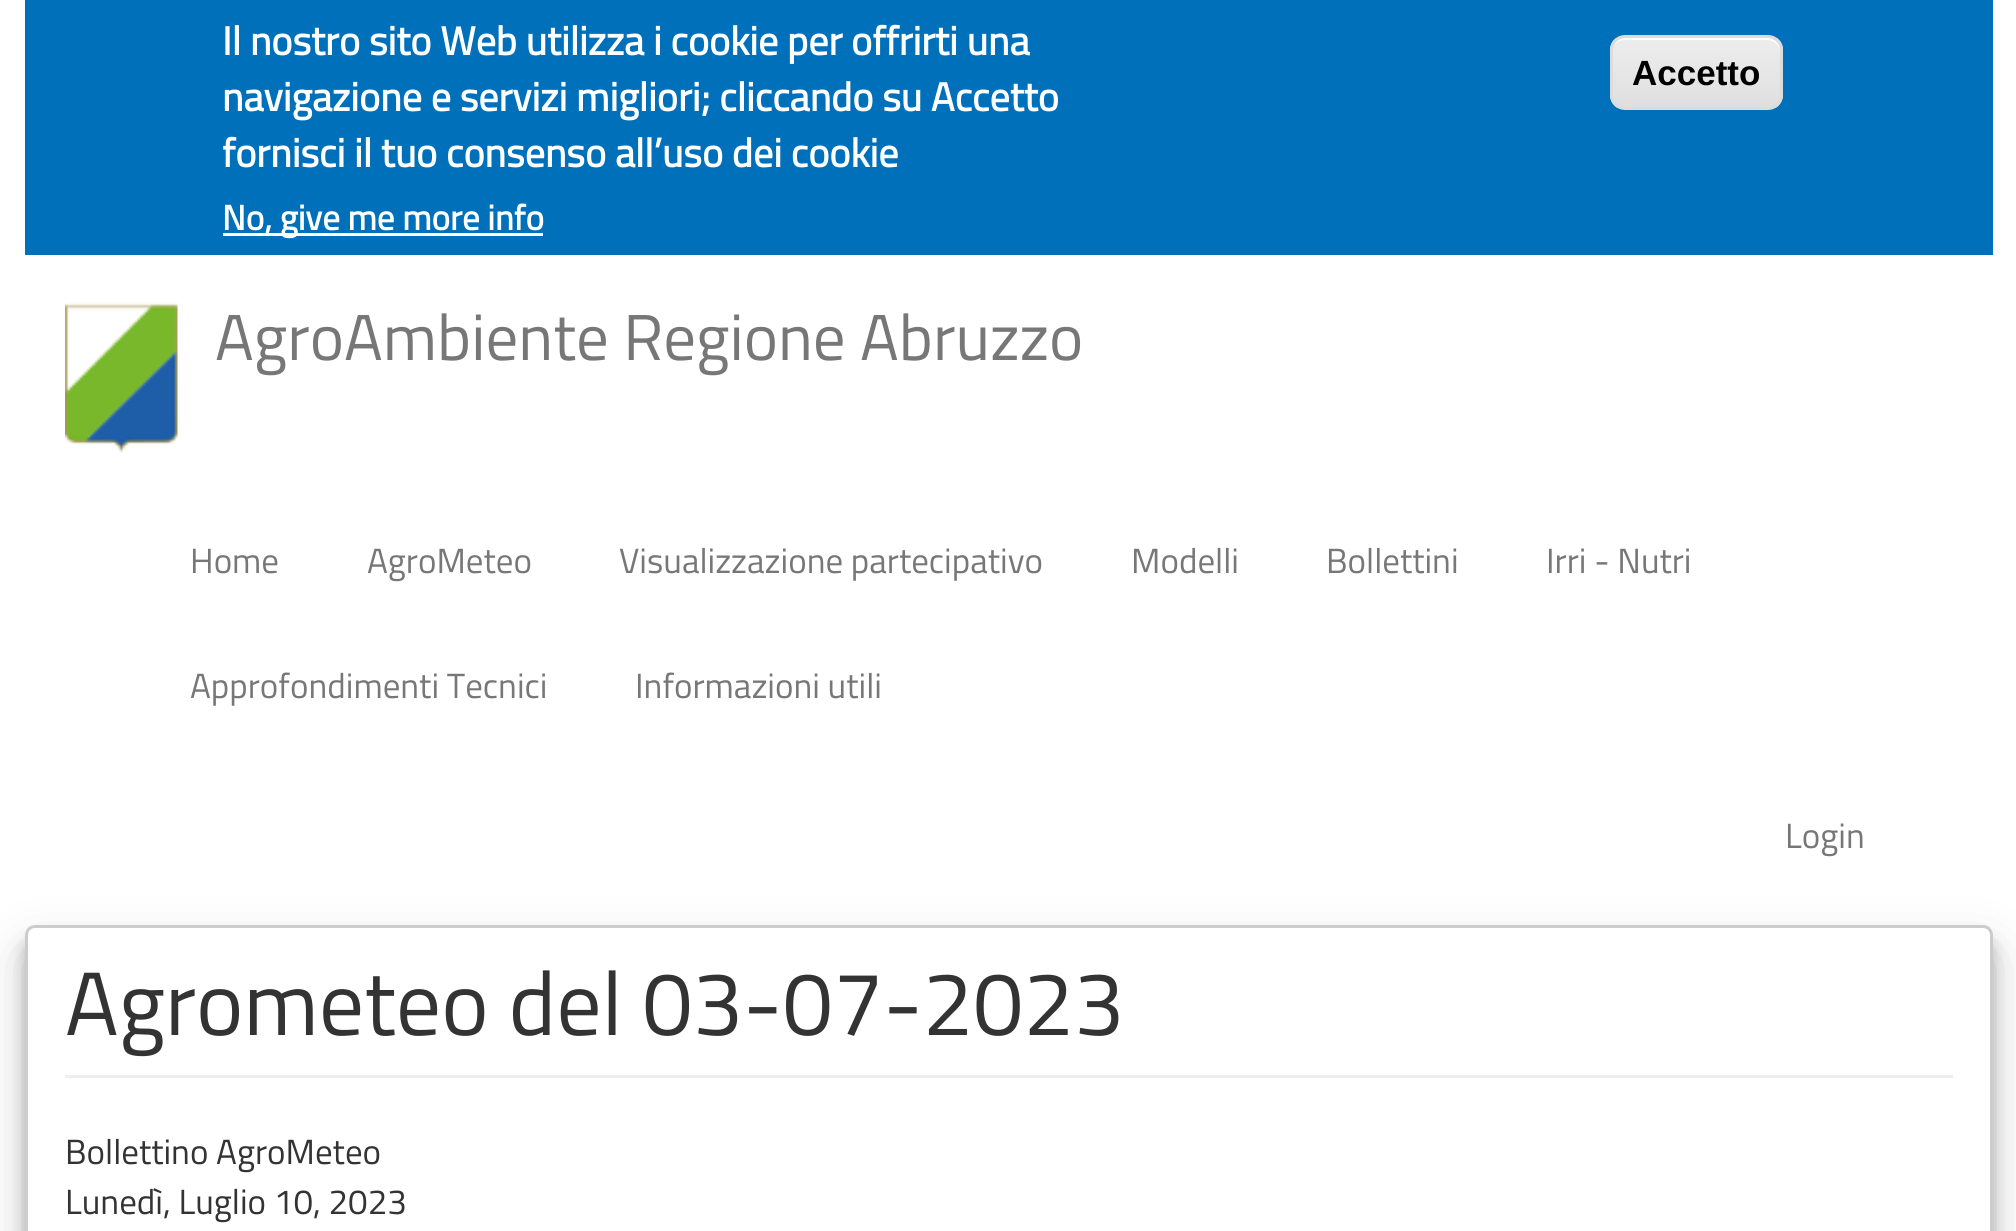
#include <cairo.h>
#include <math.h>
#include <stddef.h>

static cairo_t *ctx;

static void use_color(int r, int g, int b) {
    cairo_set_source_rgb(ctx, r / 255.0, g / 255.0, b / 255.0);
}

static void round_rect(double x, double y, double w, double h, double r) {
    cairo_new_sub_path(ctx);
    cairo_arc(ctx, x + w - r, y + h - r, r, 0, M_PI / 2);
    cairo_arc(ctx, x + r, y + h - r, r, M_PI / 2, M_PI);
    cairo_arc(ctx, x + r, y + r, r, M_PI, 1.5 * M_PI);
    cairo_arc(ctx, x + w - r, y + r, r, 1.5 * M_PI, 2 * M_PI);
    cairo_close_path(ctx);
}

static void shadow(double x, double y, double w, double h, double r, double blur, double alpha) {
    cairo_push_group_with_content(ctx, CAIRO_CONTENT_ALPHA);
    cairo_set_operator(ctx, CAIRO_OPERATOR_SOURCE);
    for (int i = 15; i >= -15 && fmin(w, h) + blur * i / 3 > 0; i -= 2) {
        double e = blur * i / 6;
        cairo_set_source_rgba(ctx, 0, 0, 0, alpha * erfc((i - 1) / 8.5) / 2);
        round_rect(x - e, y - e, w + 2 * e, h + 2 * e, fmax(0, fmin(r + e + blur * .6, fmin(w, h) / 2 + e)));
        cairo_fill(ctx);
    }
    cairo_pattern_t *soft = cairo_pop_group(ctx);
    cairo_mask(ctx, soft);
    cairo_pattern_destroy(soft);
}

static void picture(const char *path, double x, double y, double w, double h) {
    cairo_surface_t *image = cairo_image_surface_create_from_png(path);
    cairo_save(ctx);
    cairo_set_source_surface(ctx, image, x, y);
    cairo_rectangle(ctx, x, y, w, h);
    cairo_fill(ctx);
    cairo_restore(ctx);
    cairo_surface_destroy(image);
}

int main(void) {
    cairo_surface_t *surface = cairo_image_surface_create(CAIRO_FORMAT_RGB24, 2016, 1231);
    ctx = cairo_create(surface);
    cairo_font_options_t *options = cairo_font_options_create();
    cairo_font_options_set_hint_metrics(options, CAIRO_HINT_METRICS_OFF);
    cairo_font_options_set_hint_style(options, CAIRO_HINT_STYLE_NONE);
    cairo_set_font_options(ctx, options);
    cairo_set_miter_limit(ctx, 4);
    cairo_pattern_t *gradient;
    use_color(255, 255, 255);
    cairo_paint(ctx);
    use_color(0, 112, 186);
    cairo_rectangle(ctx, 25, 0, 1968, 255);
    cairo_fill(ctx);
    cairo_select_font_face(ctx, "Titillium Web", CAIRO_FONT_SLANT_NORMAL, CAIRO_FONT_WEIGHT_BOLD);
    cairo_set_font_size(ctx, 40);
    use_color(255, 255, 255);
    cairo_move_to(ctx, 222, 55);
    cairo_show_text(ctx, "Il nostro sito Web utilizza i cookie per offrirti una");
    cairo_move_to(ctx, 222, 111);
    cairo_show_text(ctx, "navigazione e servizi migliori; cliccando su Accetto");
    cairo_move_to(ctx, 222, 167);
    cairo_show_text(ctx, "fornisci il tuo consenso all’uso dei cookie");
    cairo_rectangle(ctx, 223, 233, 320, 3);
    cairo_fill(ctx);
    cairo_set_font_size(ctx, 35);
    cairo_move_to(ctx, 222, 230);
    cairo_show_text(ctx, "No, give me more info");
    cairo_save(ctx);
    round_rect(1610, 35, 173, 75, 15);
    cairo_clip(ctx);
    gradient = cairo_pattern_create_linear(1696, 37, 1696, 108);
    cairo_pattern_add_color_stop_rgba(gradient, 0.05, 0.929, 0.929, 0.929, 1);
    cairo_pattern_add_color_stop_rgba(gradient, 1, 0.875, 0.875, 0.875, 1);
    cairo_set_source(ctx, gradient);
    cairo_pattern_destroy(gradient);
    cairo_rectangle(ctx, 1610, 38, 173, 70);
    cairo_fill(ctx);
    cairo_restore(ctx);
    cairo_new_path(ctx);
    cairo_move_to(ctx, 1625, 40);
    cairo_line_to(ctx, 1768, 40);
    cairo_curve_to(ctx, 1774, 40, 1780, 46, 1780, 52);
    cairo_line_to(ctx, 1780, 51);
    cairo_curve_to(ctx, 1780, 44, 1774, 38, 1767, 38);
    cairo_line_to(ctx, 1626, 38);
    cairo_curve_to(ctx, 1621, 38, 1616, 41, 1614, 46);
    cairo_curve_to(ctx, 1616, 42, 1620, 40, 1625, 40);
    cairo_close_path(ctx);
    cairo_fill(ctx);
    round_rect(1611.5, 36.5, 170, 72, 13.5);
    use_color(220, 220, 220);
    cairo_set_line_width(ctx, 3);
    cairo_stroke(ctx);
    cairo_select_font_face(ctx, "Liberation Sans", CAIRO_FONT_SLANT_NORMAL, CAIRO_FONT_WEIGHT_BOLD);
    use_color(0, 0, 0);
    cairo_move_to(ctx, 1632, 85);
    cairo_show_text(ctx, "Accetto");
    picture("img1.png", 65, 302, 113, 151);
    cairo_select_font_face(ctx, "Titillium Web", CAIRO_FONT_SLANT_NORMAL, CAIRO_FONT_WEIGHT_NORMAL);
    cairo_set_font_size(ctx, 65);
    use_color(119, 119, 119);
    cairo_move_to(ctx, 215, 360);
    cairo_show_text(ctx, "AgroAmbiente Regione Abruzzo");
    cairo_set_font_size(ctx, 35);
    cairo_move_to(ctx, 190, 573);
    cairo_show_text(ctx, "Home");
    cairo_move_to(ctx, 367, 573);
    cairo_show_text(ctx, "AgroMeteo");
    cairo_move_to(ctx, 619, 573);
    cairo_show_text(ctx, "Visualizzazione partecipativo");
    cairo_move_to(ctx, 1131, 573);
    cairo_show_text(ctx, "Modelli");
    cairo_move_to(ctx, 1326, 573);
    cairo_show_text(ctx, "Bollettini");
    cairo_move_to(ctx, 1546, 573);
    cairo_show_text(ctx, "Irri - Nutri");
    cairo_move_to(ctx, 190, 698);
    cairo_show_text(ctx, "Approfondimenti Tecnici");
    cairo_move_to(ctx, 635, 698);
    cairo_show_text(ctx, "Informazioni utili");
    cairo_move_to(ctx, 1785, 848);
    cairo_show_text(ctx, "Login");
    cairo_save(ctx);
    cairo_set_fill_rule(ctx, CAIRO_FILL_RULE_EVEN_ODD);
    cairo_new_path(ctx);
    cairo_move_to(ctx, 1, 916);
    cairo_line_to(ctx, 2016, 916);
    cairo_line_to(ctx, 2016, 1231);
    cairo_line_to(ctx, 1, 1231);
    cairo_close_path(ctx);
    cairo_move_to(ctx, 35, 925);
    cairo_line_to(ctx, 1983, 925);
    cairo_curve_to(ctx, 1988.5, 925, 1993, 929.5, 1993, 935);
    cairo_line_to(ctx, 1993, 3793);
    cairo_curve_to(ctx, 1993, 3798.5, 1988.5, 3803, 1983, 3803);
    cairo_line_to(ctx, 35, 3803);
    cairo_curve_to(ctx, 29.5, 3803, 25, 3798.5, 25, 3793);
    cairo_line_to(ctx, 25, 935);
    cairo_curve_to(ctx, 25, 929.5, 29.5, 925, 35, 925);
    cairo_close_path(ctx);
    cairo_clip(ctx);
    use_color(0, 0, 0);
    shadow(25, 940, 1968, 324, 10, 7.5, 0.23);
    cairo_restore(ctx);
    cairo_save(ctx);
    cairo_set_fill_rule(ctx, CAIRO_FILL_RULE_EVEN_ODD);
    cairo_new_path(ctx);
    cairo_move_to(ctx, 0, 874);
    cairo_line_to(ctx, 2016, 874);
    cairo_line_to(ctx, 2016, 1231);
    cairo_line_to(ctx, 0, 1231);
    cairo_close_path(ctx);
    cairo_move_to(ctx, 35, 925);
    cairo_line_to(ctx, 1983, 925);
    cairo_curve_to(ctx, 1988.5, 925, 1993, 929.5, 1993, 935);
    cairo_line_to(ctx, 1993, 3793);
    cairo_curve_to(ctx, 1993, 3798.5, 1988.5, 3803, 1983, 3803);
    cairo_line_to(ctx, 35, 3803);
    cairo_curve_to(ctx, 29.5, 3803, 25, 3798.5, 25, 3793);
    cairo_line_to(ctx, 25, 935);
    cairo_curve_to(ctx, 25, 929.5, 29.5, 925, 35, 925);
    cairo_close_path(ctx);
    cairo_clip(ctx);
    use_color(0, 0, 0);
    shadow(25, 950, 1968, 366, 10, 25, 0.19);
    cairo_restore(ctx);
    round_rect(26.5, 926.5, 1965, 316, 8.5);
    use_color(204, 204, 204);
    cairo_stroke(ctx);
    use_color(238, 238, 238);
    cairo_rectangle(ctx, 65, 1075, 1888, 3);
    cairo_fill(ctx);
    cairo_set_font_size(ctx, 90);
    use_color(51, 51, 51);
    cairo_move_to(ctx, 65, 1035);
    cairo_show_text(ctx, "Agrometeo del 03-07-2023");
    cairo_set_font_size(ctx, 35);
    cairo_move_to(ctx, 65, 1164);
    cairo_show_text(ctx, "Bollettino AgroMeteo");
    cairo_move_to(ctx, 65, 1214);
    cairo_show_text(ctx, "Lunedì, Luglio 10, 2023");
    cairo_surface_write_to_png(surface, "result.png");
    cairo_font_options_destroy(options);
    cairo_destroy(ctx);
    cairo_surface_destroy(surface);
    return 0;
}
